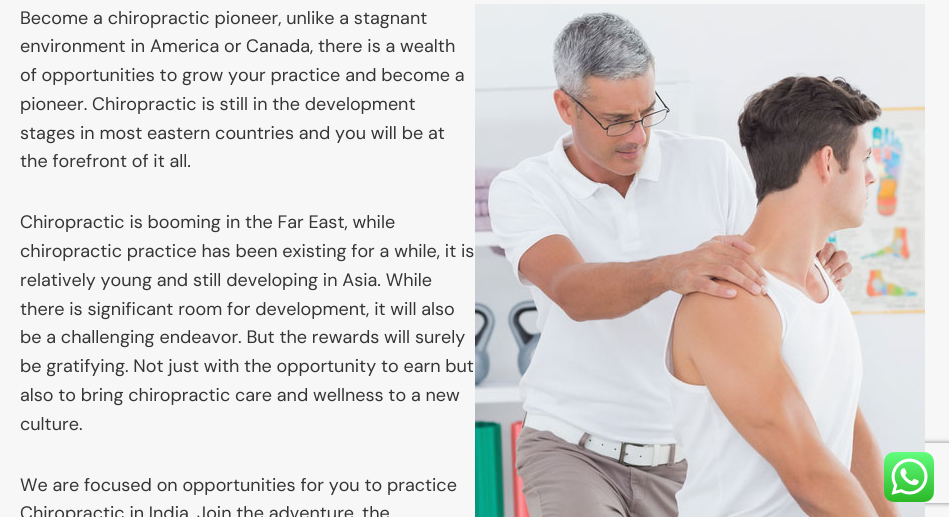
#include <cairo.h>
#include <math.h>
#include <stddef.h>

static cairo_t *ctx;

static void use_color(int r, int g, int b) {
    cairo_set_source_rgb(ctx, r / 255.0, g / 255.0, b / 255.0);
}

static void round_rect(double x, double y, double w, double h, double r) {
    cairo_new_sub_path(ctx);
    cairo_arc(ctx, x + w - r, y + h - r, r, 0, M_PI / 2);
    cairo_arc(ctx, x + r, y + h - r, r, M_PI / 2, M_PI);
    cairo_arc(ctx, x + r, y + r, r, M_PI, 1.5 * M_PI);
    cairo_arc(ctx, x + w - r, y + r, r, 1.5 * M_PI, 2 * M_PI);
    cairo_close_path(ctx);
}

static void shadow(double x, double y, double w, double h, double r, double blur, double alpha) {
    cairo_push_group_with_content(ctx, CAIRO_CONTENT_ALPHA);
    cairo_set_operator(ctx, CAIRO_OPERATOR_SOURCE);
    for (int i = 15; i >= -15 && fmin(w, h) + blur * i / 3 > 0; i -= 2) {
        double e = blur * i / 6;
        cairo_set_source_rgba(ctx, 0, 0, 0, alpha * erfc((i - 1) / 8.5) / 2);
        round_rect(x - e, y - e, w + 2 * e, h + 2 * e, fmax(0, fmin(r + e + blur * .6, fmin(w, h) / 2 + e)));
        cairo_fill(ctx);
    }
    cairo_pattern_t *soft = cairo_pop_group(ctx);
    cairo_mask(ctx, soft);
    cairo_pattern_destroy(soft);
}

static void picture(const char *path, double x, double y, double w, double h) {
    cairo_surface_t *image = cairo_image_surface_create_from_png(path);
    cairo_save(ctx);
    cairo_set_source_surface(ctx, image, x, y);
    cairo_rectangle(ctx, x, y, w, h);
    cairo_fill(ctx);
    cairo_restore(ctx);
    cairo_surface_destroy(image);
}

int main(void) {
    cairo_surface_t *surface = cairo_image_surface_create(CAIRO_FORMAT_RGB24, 949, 517);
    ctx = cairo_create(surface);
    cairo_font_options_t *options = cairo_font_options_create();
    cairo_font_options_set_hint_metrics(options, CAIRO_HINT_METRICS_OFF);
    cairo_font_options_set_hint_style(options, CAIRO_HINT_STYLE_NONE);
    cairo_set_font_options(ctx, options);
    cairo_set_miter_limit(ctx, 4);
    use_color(247, 247, 247);
    cairo_paint(ctx);
    cairo_select_font_face(ctx, "DM Sans", CAIRO_FONT_SLANT_NORMAL, CAIRO_FONT_WEIGHT_NORMAL);
    cairo_set_font_size(ctx, 18);
    use_color(53, 53, 53);
    cairo_move_to(ctx, 20, 24);
    cairo_show_text(ctx, "Become a chiropractic pioneer, unlike a stagnant");
    cairo_move_to(ctx, 20, 52);
    cairo_show_text(ctx, "environment in America or Canada, there is a wealth");
    cairo_move_to(ctx, 20, 81);
    cairo_show_text(ctx, "of opportunities to grow your practice and become a");
    cairo_move_to(ctx, 20, 110);
    cairo_show_text(ctx, "pioneer. Chiropractic is still in the development");
    cairo_move_to(ctx, 20, 139);
    cairo_show_text(ctx, "stages in most eastern countries and you will be at");
    cairo_move_to(ctx, 20, 167);
    cairo_show_text(ctx, "the forefront of it all.");
    cairo_move_to(ctx, 20, 228);
    cairo_show_text(ctx, "Chiropractic is booming in the Far East, while");
    cairo_move_to(ctx, 20, 257);
    cairo_show_text(ctx, "chiropractic practice has been existing for a while, it is");
    cairo_move_to(ctx, 20, 286);
    cairo_show_text(ctx, "relatively young and still developing in Asia. While");
    cairo_move_to(ctx, 20, 315);
    cairo_show_text(ctx, "there is significant room for development, it will also");
    cairo_move_to(ctx, 20, 343);
    cairo_show_text(ctx, "be a challenging endeavor. But the rewards will surely");
    cairo_move_to(ctx, 20, 372);
    cairo_show_text(ctx, "be gratifying. Not just with the opportunity to earn but");
    cairo_move_to(ctx, 20, 401);
    cairo_show_text(ctx, "also to bring chiropractic care and wellness to a new");
    cairo_move_to(ctx, 20, 430);
    cairo_show_text(ctx, "culture.");
    cairo_move_to(ctx, 20, 491);
    cairo_show_text(ctx, "We are focused on opportunities for you to practice");
    cairo_move_to(ctx, 20, 519);
    cairo_show_text(ctx, "Chiropractic in India. Join the adventure, the");
    cairo_save(ctx);
    cairo_set_fill_rule(ctx, CAIRO_FILL_RULE_EVEN_ODD);
    cairo_new_path(ctx);
    cairo_move_to(ctx, 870, 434);
    cairo_line_to(ctx, 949, 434);
    cairo_line_to(ctx, 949, 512);
    cairo_line_to(ctx, 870, 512);
    cairo_close_path(ctx);
    cairo_move_to(ctx, 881, 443);
    cairo_line_to(ctx, 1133, 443);
    cairo_curve_to(ctx, 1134, 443, 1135, 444, 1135, 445);
    cairo_line_to(ctx, 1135, 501);
    cairo_curve_to(ctx, 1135, 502, 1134, 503, 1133, 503);
    cairo_line_to(ctx, 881, 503);
    cairo_curve_to(ctx, 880, 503, 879, 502, 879, 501);
    cairo_line_to(ctx, 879, 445);
    cairo_curve_to(ctx, 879, 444, 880, 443, 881, 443);
    cairo_close_path(ctx);
    cairo_clip(ctx);
    use_color(128, 128, 128);
    shadow(879, 443, 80, 60, 2, 2.5, 1);
    cairo_restore(ctx);
    picture("img1.png", 475, 4, 450, 513);
    picture("img2.png", 884, 452, 50, 50);
    cairo_surface_write_to_png(surface, "result.png");
    cairo_font_options_destroy(options);
    cairo_destroy(ctx);
    cairo_surface_destroy(surface);
    return 0;
}
